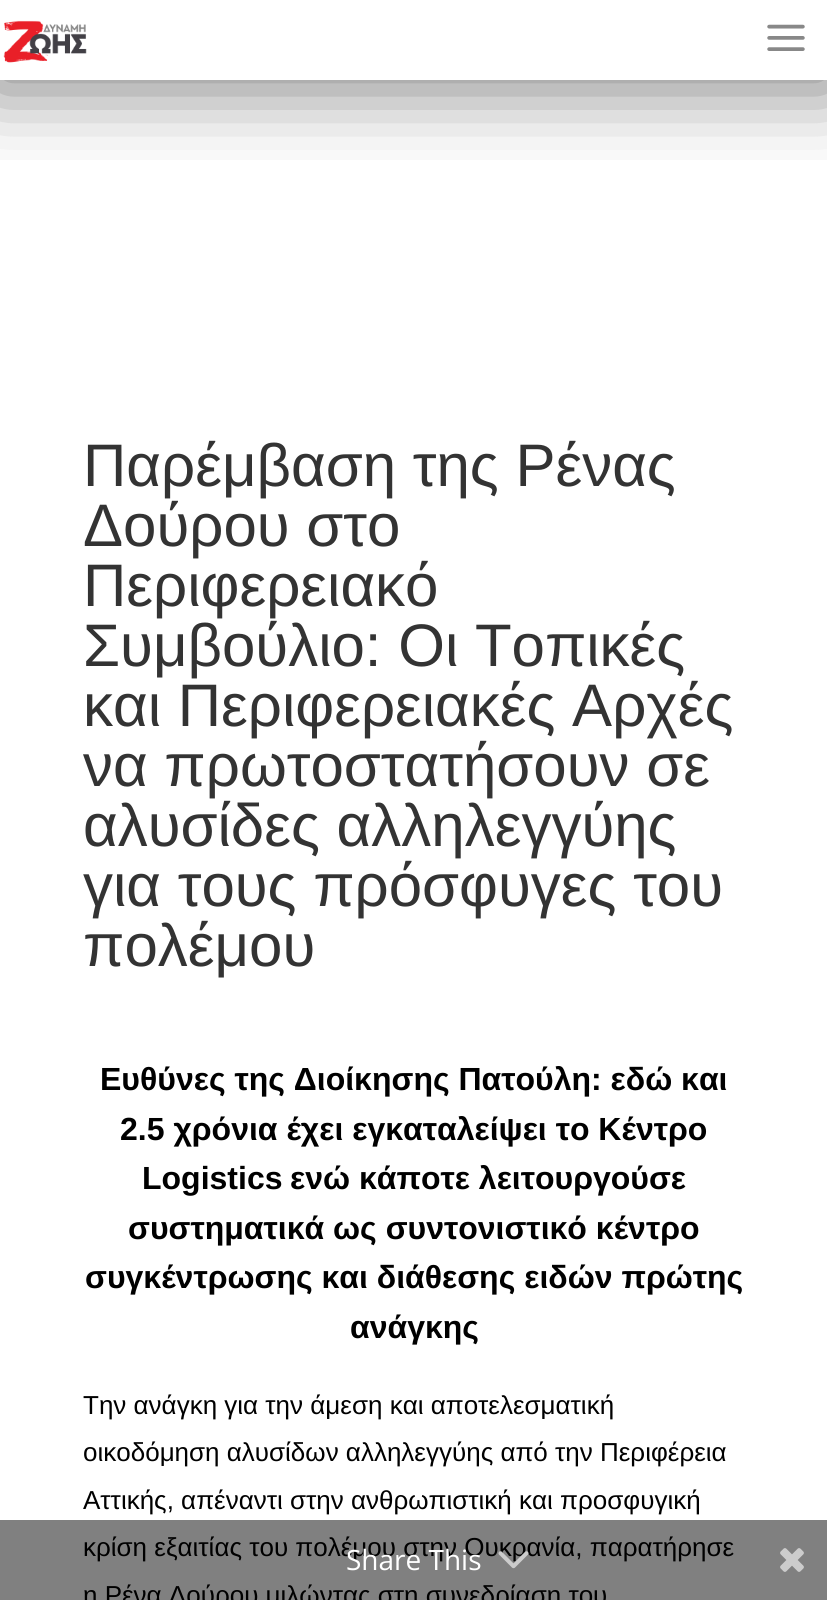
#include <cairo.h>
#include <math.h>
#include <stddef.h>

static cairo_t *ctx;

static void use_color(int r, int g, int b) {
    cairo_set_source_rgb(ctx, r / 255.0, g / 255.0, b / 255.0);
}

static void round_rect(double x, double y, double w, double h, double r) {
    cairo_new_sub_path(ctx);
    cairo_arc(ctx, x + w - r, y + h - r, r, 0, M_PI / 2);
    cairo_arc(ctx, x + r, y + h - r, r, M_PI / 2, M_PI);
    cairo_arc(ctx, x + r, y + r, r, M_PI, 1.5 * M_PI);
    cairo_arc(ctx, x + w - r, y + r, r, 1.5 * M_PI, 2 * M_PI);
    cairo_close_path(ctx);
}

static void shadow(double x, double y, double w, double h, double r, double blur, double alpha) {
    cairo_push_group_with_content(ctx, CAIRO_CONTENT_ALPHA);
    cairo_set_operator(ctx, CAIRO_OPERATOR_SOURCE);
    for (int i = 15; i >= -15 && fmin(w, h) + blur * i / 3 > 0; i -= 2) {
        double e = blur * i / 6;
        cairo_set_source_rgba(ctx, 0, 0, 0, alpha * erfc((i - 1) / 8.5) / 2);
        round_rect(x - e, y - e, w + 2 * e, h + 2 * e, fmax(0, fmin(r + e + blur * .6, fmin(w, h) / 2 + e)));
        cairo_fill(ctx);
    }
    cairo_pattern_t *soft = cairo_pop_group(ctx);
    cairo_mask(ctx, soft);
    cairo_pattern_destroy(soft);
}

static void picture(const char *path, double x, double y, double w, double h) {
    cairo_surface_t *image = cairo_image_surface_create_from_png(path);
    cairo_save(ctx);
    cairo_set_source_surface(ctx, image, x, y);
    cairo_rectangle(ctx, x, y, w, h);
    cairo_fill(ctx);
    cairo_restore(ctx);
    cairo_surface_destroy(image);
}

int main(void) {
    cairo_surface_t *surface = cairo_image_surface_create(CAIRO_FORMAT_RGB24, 827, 1600);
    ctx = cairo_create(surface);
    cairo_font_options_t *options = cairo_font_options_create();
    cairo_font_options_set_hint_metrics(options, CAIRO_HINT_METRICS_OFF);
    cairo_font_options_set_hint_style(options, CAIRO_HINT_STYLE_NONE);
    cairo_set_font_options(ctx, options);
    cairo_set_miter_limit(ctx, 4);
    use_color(255, 255, 255);
    cairo_paint(ctx);
    use_color(128, 128, 128);
    cairo_rectangle(ctx, 0, 1520, 827, 80);
    cairo_fill(ctx);
    cairo_save(ctx);
    cairo_rectangle(ctx, 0, 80, 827, 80);
    cairo_clip(ctx);
    use_color(0, 0, 0);
    shadow(-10, -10, 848, 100, 0, 40, 0.5);
    cairo_restore(ctx);
    picture("img1.png", 3, 20, 84, 43);
    picture("img2.png", 767, 24, 38, 27);
    cairo_select_font_face(ctx, "Liberation Sans", CAIRO_FONT_SLANT_NORMAL, CAIRO_FONT_WEIGHT_NORMAL);
    cairo_set_font_size(ctx, 60);
    use_color(51, 51, 51);
    cairo_move_to(ctx, 83, 486);
    cairo_show_text(ctx, "Παρέμβαση της Ρένας");
    cairo_move_to(ctx, 83, 546);
    cairo_show_text(ctx, "Δούρου στο");
    cairo_move_to(ctx, 83, 606);
    cairo_show_text(ctx, "Περιφερειακό");
    cairo_move_to(ctx, 83, 666);
    cairo_show_text(ctx, "Συμβούλιο: Οι Τοπικές");
    cairo_move_to(ctx, 83, 726);
    cairo_show_text(ctx, "και Περιφερειακές Αρχές");
    cairo_move_to(ctx, 83, 786);
    cairo_show_text(ctx, "να πρωτοστατήσουν σε");
    cairo_move_to(ctx, 83, 846);
    cairo_show_text(ctx, "αλυσίδες αλληλεγγύης");
    cairo_move_to(ctx, 83, 906);
    cairo_show_text(ctx, "για τους πρόσφυγες του");
    cairo_move_to(ctx, 83, 966);
    cairo_show_text(ctx, "πολέμου");
    cairo_select_font_face(ctx, "Liberation Sans", CAIRO_FONT_SLANT_NORMAL, CAIRO_FONT_WEIGHT_BOLD);
    cairo_set_font_size(ctx, 32);
    use_color(0, 0, 0);
    cairo_move_to(ctx, 100, 1090);
    cairo_show_text(ctx, "Ευθύνες της Διοίκησης Πατούλη: εδώ και");
    cairo_move_to(ctx, 120, 1140);
    cairo_show_text(ctx, "2.5 χρόνια έχει εγκαταλείψει το Κέντρο");
    cairo_move_to(ctx, 142, 1189);
    cairo_show_text(ctx, "Logistics");
    cairo_move_to(ctx, 290, 1189);
    cairo_show_text(ctx, "ενώ κάποτε λειτουργούσε");
    cairo_move_to(ctx, 128, 1239);
    cairo_show_text(ctx, "συστηματικά ως συντονιστικό κέντρο");
    cairo_move_to(ctx, 85, 1288);
    cairo_show_text(ctx, "συγκέντρωσης και διάθεσης ειδών πρώτης");
    cairo_move_to(ctx, 350, 1338);
    cairo_show_text(ctx, "ανάγκης");
    cairo_select_font_face(ctx, "Liberation Sans", CAIRO_FONT_SLANT_NORMAL, CAIRO_FONT_WEIGHT_NORMAL);
    cairo_set_font_size(ctx, 26);
    cairo_move_to(ctx, 83, 1414);
    cairo_show_text(ctx, "Την ανάγκη για την άμεση και αποτελεσματική");
    cairo_move_to(ctx, 83, 1461);
    cairo_show_text(ctx, "οικοδόμηση αλυσίδων αλληλεγγύης από την Περιφέρεια");
    cairo_move_to(ctx, 83, 1509);
    cairo_show_text(ctx, "Αττικής, απέναντι στην ανθρωπιστική και προσφυγική");
    cairo_move_to(ctx, 83, 1556);
    cairo_show_text(ctx, "κρίση εξαιτίας του πολέμου στην Ουκρανία, παρατήρησε");
    cairo_move_to(ctx, 83, 1604);
    cairo_show_text(ctx, "η Ρένα Δούρου μιλώντας στη συνεδρίαση του");
    cairo_select_font_face(ctx, "Open Sans", CAIRO_FONT_SLANT_NORMAL, CAIRO_FONT_WEIGHT_NORMAL);
    cairo_set_font_size(ctx, 28);
    use_color(255, 255, 255);
    cairo_move_to(ctx, 346, 1570);
    cairo_show_text(ctx, "Share This");
    picture("img3.png", 498, 1551, 31, 18);
    picture("img4.png", 780, 1548, 24, 24);
    cairo_surface_write_to_png(surface, "result.png");
    cairo_font_options_destroy(options);
    cairo_destroy(ctx);
    cairo_surface_destroy(surface);
    return 0;
}
